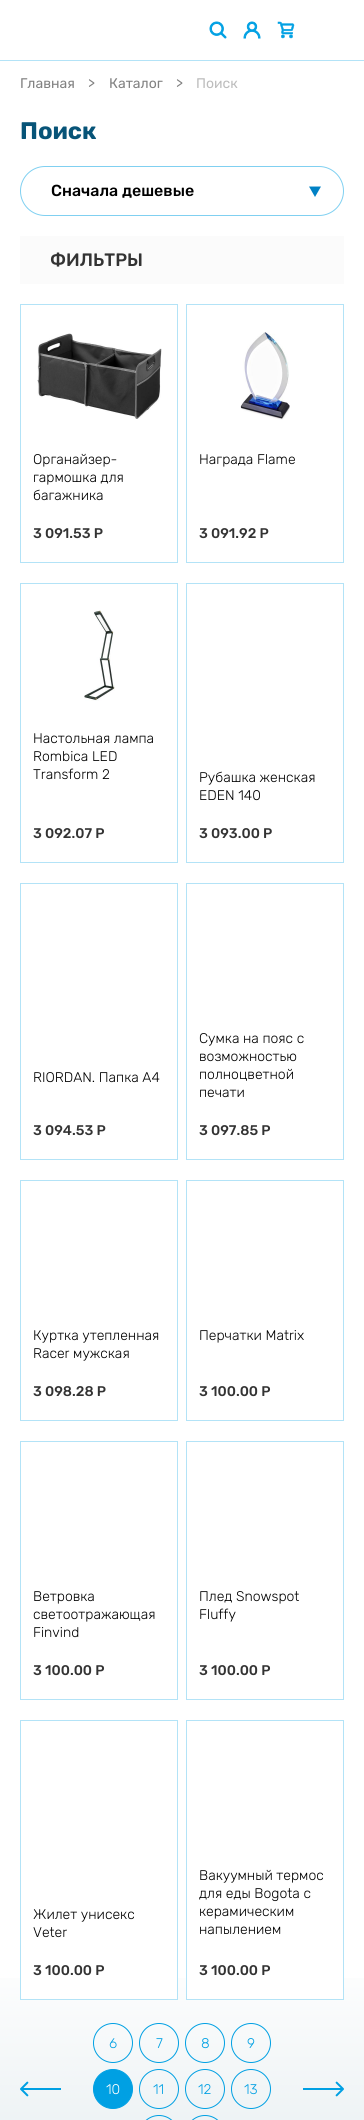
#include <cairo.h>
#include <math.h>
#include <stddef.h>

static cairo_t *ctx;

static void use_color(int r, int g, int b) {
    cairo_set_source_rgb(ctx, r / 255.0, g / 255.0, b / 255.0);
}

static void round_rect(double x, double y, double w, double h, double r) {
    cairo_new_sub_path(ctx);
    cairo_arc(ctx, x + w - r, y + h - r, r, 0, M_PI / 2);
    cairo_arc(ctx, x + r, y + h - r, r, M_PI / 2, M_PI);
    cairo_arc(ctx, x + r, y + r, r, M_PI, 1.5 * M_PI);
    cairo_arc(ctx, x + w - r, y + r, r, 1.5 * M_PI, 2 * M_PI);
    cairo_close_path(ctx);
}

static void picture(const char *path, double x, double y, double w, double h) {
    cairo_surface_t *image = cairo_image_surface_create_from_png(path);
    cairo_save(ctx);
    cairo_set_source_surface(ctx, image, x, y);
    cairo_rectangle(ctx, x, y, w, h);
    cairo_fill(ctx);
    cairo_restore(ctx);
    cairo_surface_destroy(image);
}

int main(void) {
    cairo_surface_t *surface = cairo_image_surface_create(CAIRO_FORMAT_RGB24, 364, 2120);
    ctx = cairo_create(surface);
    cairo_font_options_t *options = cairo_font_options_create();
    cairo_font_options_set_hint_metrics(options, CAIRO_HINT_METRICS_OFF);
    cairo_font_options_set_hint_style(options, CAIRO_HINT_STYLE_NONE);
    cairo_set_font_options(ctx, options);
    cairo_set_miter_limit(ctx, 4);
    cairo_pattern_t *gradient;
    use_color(255, 255, 255);
    cairo_paint(ctx);
    use_color(179, 227, 247);
    cairo_rectangle(ctx, 0, 60, 364, 1);
    cairo_fill(ctx);
    picture("img1.png", 209, 21, 18, 18);
    picture("img2.png", 243, 21, 18, 18);
    picture("img3.png", 277, 21, 18, 18);
    cairo_select_font_face(ctx, "Rubik", CAIRO_FONT_SLANT_NORMAL, CAIRO_FONT_WEIGHT_NORMAL);
    cairo_set_font_size(ctx, 14);
    use_color(130, 130, 130);
    cairo_move_to(ctx, 20, 88);
    cairo_show_text(ctx, "Главная");
    cairo_move_to(ctx, 88, 88);
    cairo_show_text(ctx, ">");
    cairo_move_to(ctx, 109, 88);
    cairo_show_text(ctx, "Каталог");
    cairo_move_to(ctx, 176, 88);
    cairo_show_text(ctx, ">");
    use_color(189, 189, 189);
    cairo_move_to(ctx, 196, 88);
    cairo_show_text(ctx, "Поиск");
    cairo_select_font_face(ctx, "Rubik", CAIRO_FONT_SLANT_NORMAL, CAIRO_FONT_WEIGHT_BOLD);
    cairo_set_font_size(ctx, 24);
    use_color(7, 84, 120);
    cairo_move_to(ctx, 20, 139);
    cairo_show_text(ctx, "Поиск");
    round_rect(20.5, 166.5, 323, 49, 24.5);
    use_color(128, 208, 241);
    cairo_set_line_width(ctx, 1);
    cairo_stroke(ctx);
    cairo_select_font_face(ctx, "Rubik Medium", CAIRO_FONT_SLANT_NORMAL, CAIRO_FONT_WEIGHT_NORMAL);
    cairo_set_font_size(ctx, 16);
    use_color(0, 0, 0);
    cairo_move_to(ctx, 51, 196);
    cairo_show_text(ctx, "Сначала дешевые");
    use_color(0, 129, 197);
    cairo_new_path(ctx);
    cairo_move_to(ctx, 315, 197);
    cairo_line_to(ctx, 321, 186.5);
    cairo_line_to(ctx, 309, 186.5);
    cairo_close_path(ctx);
    cairo_fill(ctx);
    use_color(251, 251, 251);
    cairo_rectangle(ctx, 20, 236, 324, 48);
    cairo_fill(ctx);
    cairo_set_font_size(ctx, 18);
    use_color(51, 51, 51);
    cairo_move_to(ctx, 50, 266);
    cairo_show_text(ctx, "ФИЛЬТРЫ");
    cairo_rectangle(ctx, 20.5, 304.5, 157, 258);
    use_color(179, 227, 247);
    cairo_stroke(ctx);
    picture("img4.png", 37, 333, 125, 86);
    cairo_select_font_face(ctx, "Rubik Light", CAIRO_FONT_SLANT_NORMAL, CAIRO_FONT_WEIGHT_NORMAL);
    cairo_set_font_size(ctx, 14);
    use_color(0, 0, 0);
    cairo_move_to(ctx, 33, 464);
    cairo_show_text(ctx, "Органайзер-");
    cairo_move_to(ctx, 33, 482);
    cairo_show_text(ctx, "гармошка для");
    cairo_move_to(ctx, 33, 500);
    cairo_show_text(ctx, "багажника");
    cairo_select_font_face(ctx, "Rubik Medium", CAIRO_FONT_SLANT_NORMAL, CAIRO_FONT_WEIGHT_NORMAL);
    use_color(51, 51, 51);
    cairo_move_to(ctx, 33, 538);
    cairo_show_text(ctx, "3 091.53 Р");
    cairo_rectangle(ctx, 186.5, 304.5, 157, 258);
    use_color(179, 227, 247);
    cairo_stroke(ctx);
    picture("img5.png", 240, 332, 50, 88);
    cairo_select_font_face(ctx, "Rubik Light", CAIRO_FONT_SLANT_NORMAL, CAIRO_FONT_WEIGHT_NORMAL);
    use_color(0, 0, 0);
    cairo_move_to(ctx, 199, 464);
    cairo_show_text(ctx, "Награда Flame");
    cairo_select_font_face(ctx, "Rubik Medium", CAIRO_FONT_SLANT_NORMAL, CAIRO_FONT_WEIGHT_NORMAL);
    use_color(51, 51, 51);
    cairo_move_to(ctx, 199, 538);
    cairo_show_text(ctx, "3 091.92 Р");
    cairo_rectangle(ctx, 20.5, 583.5, 157, 279);
    use_color(179, 227, 247);
    cairo_stroke(ctx);
    picture("img6.png", 84, 610, 31, 91);
    cairo_select_font_face(ctx, "Rubik Light", CAIRO_FONT_SLANT_NORMAL, CAIRO_FONT_WEIGHT_NORMAL);
    use_color(0, 0, 0);
    cairo_move_to(ctx, 33, 743);
    cairo_show_text(ctx, "Настольная лампа");
    cairo_move_to(ctx, 33, 761);
    cairo_show_text(ctx, "Rombica LED");
    cairo_move_to(ctx, 33, 779);
    cairo_show_text(ctx, "Transform 2");
    cairo_select_font_face(ctx, "Rubik Medium", CAIRO_FONT_SLANT_NORMAL, CAIRO_FONT_WEIGHT_NORMAL);
    use_color(51, 51, 51);
    cairo_move_to(ctx, 33, 838);
    cairo_show_text(ctx, "3 092.07 Р");
    cairo_rectangle(ctx, 186.5, 583.5, 157, 279);
    use_color(179, 227, 247);
    cairo_stroke(ctx);
    cairo_select_font_face(ctx, "Rubik Light", CAIRO_FONT_SLANT_NORMAL, CAIRO_FONT_WEIGHT_NORMAL);
    use_color(0, 0, 0);
    cairo_move_to(ctx, 199, 782);
    cairo_show_text(ctx, "Рубашка женская");
    cairo_move_to(ctx, 199, 800);
    cairo_show_text(ctx, "EDEN 140");
    cairo_select_font_face(ctx, "Rubik Medium", CAIRO_FONT_SLANT_NORMAL, CAIRO_FONT_WEIGHT_NORMAL);
    use_color(51, 51, 51);
    cairo_move_to(ctx, 199, 838);
    cairo_show_text(ctx, "3 093.00 Р");
    cairo_rectangle(ctx, 20.5, 883.5, 157, 276);
    use_color(179, 227, 247);
    cairo_stroke(ctx);
    cairo_select_font_face(ctx, "Rubik Light", CAIRO_FONT_SLANT_NORMAL, CAIRO_FONT_WEIGHT_NORMAL);
    use_color(0, 0, 0);
    cairo_move_to(ctx, 33, 1082);
    cairo_show_text(ctx, "RIORDAN. Папка A4");
    cairo_select_font_face(ctx, "Rubik Medium", CAIRO_FONT_SLANT_NORMAL, CAIRO_FONT_WEIGHT_NORMAL);
    use_color(51, 51, 51);
    cairo_move_to(ctx, 33, 1135);
    cairo_show_text(ctx, "3 094.53 Р");
    cairo_rectangle(ctx, 186.5, 883.5, 157, 276);
    use_color(179, 227, 247);
    cairo_stroke(ctx);
    cairo_select_font_face(ctx, "Rubik Light", CAIRO_FONT_SLANT_NORMAL, CAIRO_FONT_WEIGHT_NORMAL);
    use_color(0, 0, 0);
    cairo_move_to(ctx, 199, 1043);
    cairo_show_text(ctx, "Сумка на пояс с");
    cairo_move_to(ctx, 199, 1061);
    cairo_show_text(ctx, "возможностью");
    cairo_move_to(ctx, 199, 1079);
    cairo_show_text(ctx, "полноцветной");
    cairo_move_to(ctx, 199, 1097);
    cairo_show_text(ctx, "печати");
    cairo_select_font_face(ctx, "Rubik Medium", CAIRO_FONT_SLANT_NORMAL, CAIRO_FONT_WEIGHT_NORMAL);
    use_color(51, 51, 51);
    cairo_move_to(ctx, 199, 1135);
    cairo_show_text(ctx, "3 097.85 Р");
    cairo_rectangle(ctx, 20.5, 1180.5, 157, 240);
    use_color(179, 227, 247);
    cairo_stroke(ctx);
    cairo_select_font_face(ctx, "Rubik Light", CAIRO_FONT_SLANT_NORMAL, CAIRO_FONT_WEIGHT_NORMAL);
    use_color(0, 0, 0);
    cairo_move_to(ctx, 33, 1340);
    cairo_show_text(ctx, "Куртка утепленная");
    cairo_move_to(ctx, 33, 1358);
    cairo_show_text(ctx, "Racer мужская");
    cairo_select_font_face(ctx, "Rubik Medium", CAIRO_FONT_SLANT_NORMAL, CAIRO_FONT_WEIGHT_NORMAL);
    use_color(51, 51, 51);
    cairo_move_to(ctx, 33, 1396);
    cairo_show_text(ctx, "3 098.28 Р");
    cairo_rectangle(ctx, 186.5, 1180.5, 157, 240);
    use_color(179, 227, 247);
    cairo_stroke(ctx);
    cairo_select_font_face(ctx, "Rubik Light", CAIRO_FONT_SLANT_NORMAL, CAIRO_FONT_WEIGHT_NORMAL);
    use_color(0, 0, 0);
    cairo_move_to(ctx, 199, 1340);
    cairo_show_text(ctx, "Перчатки Matrix");
    cairo_select_font_face(ctx, "Rubik Medium", CAIRO_FONT_SLANT_NORMAL, CAIRO_FONT_WEIGHT_NORMAL);
    use_color(51, 51, 51);
    cairo_move_to(ctx, 199, 1396);
    cairo_show_text(ctx, "3 100.00 Р");
    cairo_rectangle(ctx, 20.5, 1441.5, 157, 258);
    use_color(179, 227, 247);
    cairo_stroke(ctx);
    cairo_select_font_face(ctx, "Rubik Light", CAIRO_FONT_SLANT_NORMAL, CAIRO_FONT_WEIGHT_NORMAL);
    use_color(0, 0, 0);
    cairo_move_to(ctx, 33, 1601);
    cairo_show_text(ctx, "Ветровка");
    cairo_move_to(ctx, 33, 1619);
    cairo_show_text(ctx, "светоотражающая");
    cairo_move_to(ctx, 33, 1637);
    cairo_show_text(ctx, "Finvind");
    cairo_select_font_face(ctx, "Rubik Medium", CAIRO_FONT_SLANT_NORMAL, CAIRO_FONT_WEIGHT_NORMAL);
    use_color(51, 51, 51);
    cairo_move_to(ctx, 33, 1675);
    cairo_show_text(ctx, "3 100.00 Р");
    cairo_rectangle(ctx, 186.5, 1441.5, 157, 258);
    use_color(179, 227, 247);
    cairo_stroke(ctx);
    cairo_select_font_face(ctx, "Rubik Light", CAIRO_FONT_SLANT_NORMAL, CAIRO_FONT_WEIGHT_NORMAL);
    use_color(0, 0, 0);
    cairo_move_to(ctx, 199, 1601);
    cairo_show_text(ctx, "Плед Snowspot");
    cairo_move_to(ctx, 199, 1619);
    cairo_show_text(ctx, "Fluffy");
    cairo_select_font_face(ctx, "Rubik Medium", CAIRO_FONT_SLANT_NORMAL, CAIRO_FONT_WEIGHT_NORMAL);
    use_color(51, 51, 51);
    cairo_move_to(ctx, 199, 1675);
    cairo_show_text(ctx, "3 100.00 Р");
    gradient = cairo_pattern_create_linear(182, 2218, 182, 1953);
    cairo_pattern_add_color_stop_rgba(gradient, 0, 0.894, 0.925, 0.937, 1);
    cairo_pattern_add_color_stop_rgba(gradient, 1, 1, 1, 1, 1);
    cairo_set_source(ctx, gradient);
    cairo_pattern_destroy(gradient);
    cairo_rectangle(ctx, 0, 1978, 364, 142);
    cairo_fill(ctx);
    use_color(255, 255, 255);
    cairo_rectangle(ctx, 21, 1978, 156, 21);
    cairo_fill(ctx);
    cairo_rectangle(ctx, 20.5, 1720.5, 157, 279);
    use_color(179, 227, 247);
    cairo_stroke(ctx);
    cairo_select_font_face(ctx, "Rubik Light", CAIRO_FONT_SLANT_NORMAL, CAIRO_FONT_WEIGHT_NORMAL);
    use_color(0, 0, 0);
    cairo_move_to(ctx, 33, 1919);
    cairo_show_text(ctx, "Жилет унисекс");
    cairo_move_to(ctx, 33, 1937);
    cairo_show_text(ctx, "Veter");
    cairo_select_font_face(ctx, "Rubik Medium", CAIRO_FONT_SLANT_NORMAL, CAIRO_FONT_WEIGHT_NORMAL);
    use_color(51, 51, 51);
    cairo_move_to(ctx, 33, 1975);
    cairo_show_text(ctx, "3 100.00 Р");
    use_color(255, 255, 255);
    cairo_rectangle(ctx, 187, 1978, 156, 21);
    cairo_fill(ctx);
    cairo_rectangle(ctx, 186.5, 1720.5, 157, 279);
    use_color(179, 227, 247);
    cairo_stroke(ctx);
    cairo_select_font_face(ctx, "Rubik Light", CAIRO_FONT_SLANT_NORMAL, CAIRO_FONT_WEIGHT_NORMAL);
    use_color(0, 0, 0);
    cairo_move_to(ctx, 199, 1880);
    cairo_show_text(ctx, "Вакуумный термос");
    cairo_move_to(ctx, 199, 1898);
    cairo_show_text(ctx, "для еды Bogota с");
    cairo_move_to(ctx, 199, 1916);
    cairo_show_text(ctx, "керамическим");
    cairo_move_to(ctx, 199, 1934);
    cairo_show_text(ctx, "напылением");
    cairo_select_font_face(ctx, "Rubik Medium", CAIRO_FONT_SLANT_NORMAL, CAIRO_FONT_WEIGHT_NORMAL);
    use_color(51, 51, 51);
    cairo_move_to(ctx, 199, 1975);
    cairo_show_text(ctx, "3 100.00 Р");
    picture("img7.png", 20, 2081, 41, 16);
    cairo_arc(ctx, 113, 2043, 19.5, 0, 2 * M_PI);
    use_color(0, 160, 227);
    cairo_stroke(ctx);
    cairo_select_font_face(ctx, "Rubik Light", CAIRO_FONT_SLANT_NORMAL, CAIRO_FONT_WEIGHT_NORMAL);
    cairo_move_to(ctx, 109, 2048);
    cairo_show_text(ctx, "6");
    cairo_new_path(ctx);
    cairo_arc(ctx, 159, 2043, 19.5, 0, 2 * M_PI);
    cairo_stroke(ctx);
    cairo_move_to(ctx, 156, 2048);
    cairo_show_text(ctx, "7");
    cairo_new_path(ctx);
    cairo_arc(ctx, 205, 2043, 19.5, 0, 2 * M_PI);
    cairo_stroke(ctx);
    cairo_move_to(ctx, 201, 2048);
    cairo_show_text(ctx, "8");
    cairo_new_path(ctx);
    cairo_arc(ctx, 251, 2043, 19.5, 0, 2 * M_PI);
    cairo_stroke(ctx);
    cairo_move_to(ctx, 247, 2048);
    cairo_show_text(ctx, "9");
    cairo_new_path(ctx);
    cairo_arc(ctx, 113, 2089, 19.5, 0, 2 * M_PI);
    cairo_fill_preserve(ctx);
    cairo_stroke(ctx);
    use_color(255, 255, 255);
    cairo_move_to(ctx, 106, 2094);
    cairo_show_text(ctx, "10");
    cairo_new_path(ctx);
    cairo_arc(ctx, 159, 2089, 19.5, 0, 2 * M_PI);
    use_color(0, 160, 227);
    cairo_stroke(ctx);
    cairo_move_to(ctx, 153, 2094);
    cairo_show_text(ctx, "11");
    cairo_new_path(ctx);
    cairo_arc(ctx, 205, 2089, 19.5, 0, 2 * M_PI);
    cairo_stroke(ctx);
    cairo_move_to(ctx, 198, 2094);
    cairo_show_text(ctx, "12");
    cairo_new_path(ctx);
    cairo_arc(ctx, 251, 2089, 19.5, 0, 2 * M_PI);
    cairo_stroke(ctx);
    cairo_move_to(ctx, 244, 2094);
    cairo_show_text(ctx, "13");
    round_rect(139.5, 2115.5, 39, 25, 19.5);
    cairo_stroke(ctx);
    round_rect(185.5, 2115.5, 39, 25, 19.5);
    cairo_stroke(ctx);
    picture("img8.png", 303, 2081, 41, 16);
    cairo_surface_write_to_png(surface, "result.png");
    cairo_font_options_destroy(options);
    cairo_destroy(ctx);
    cairo_surface_destroy(surface);
    return 0;
}
